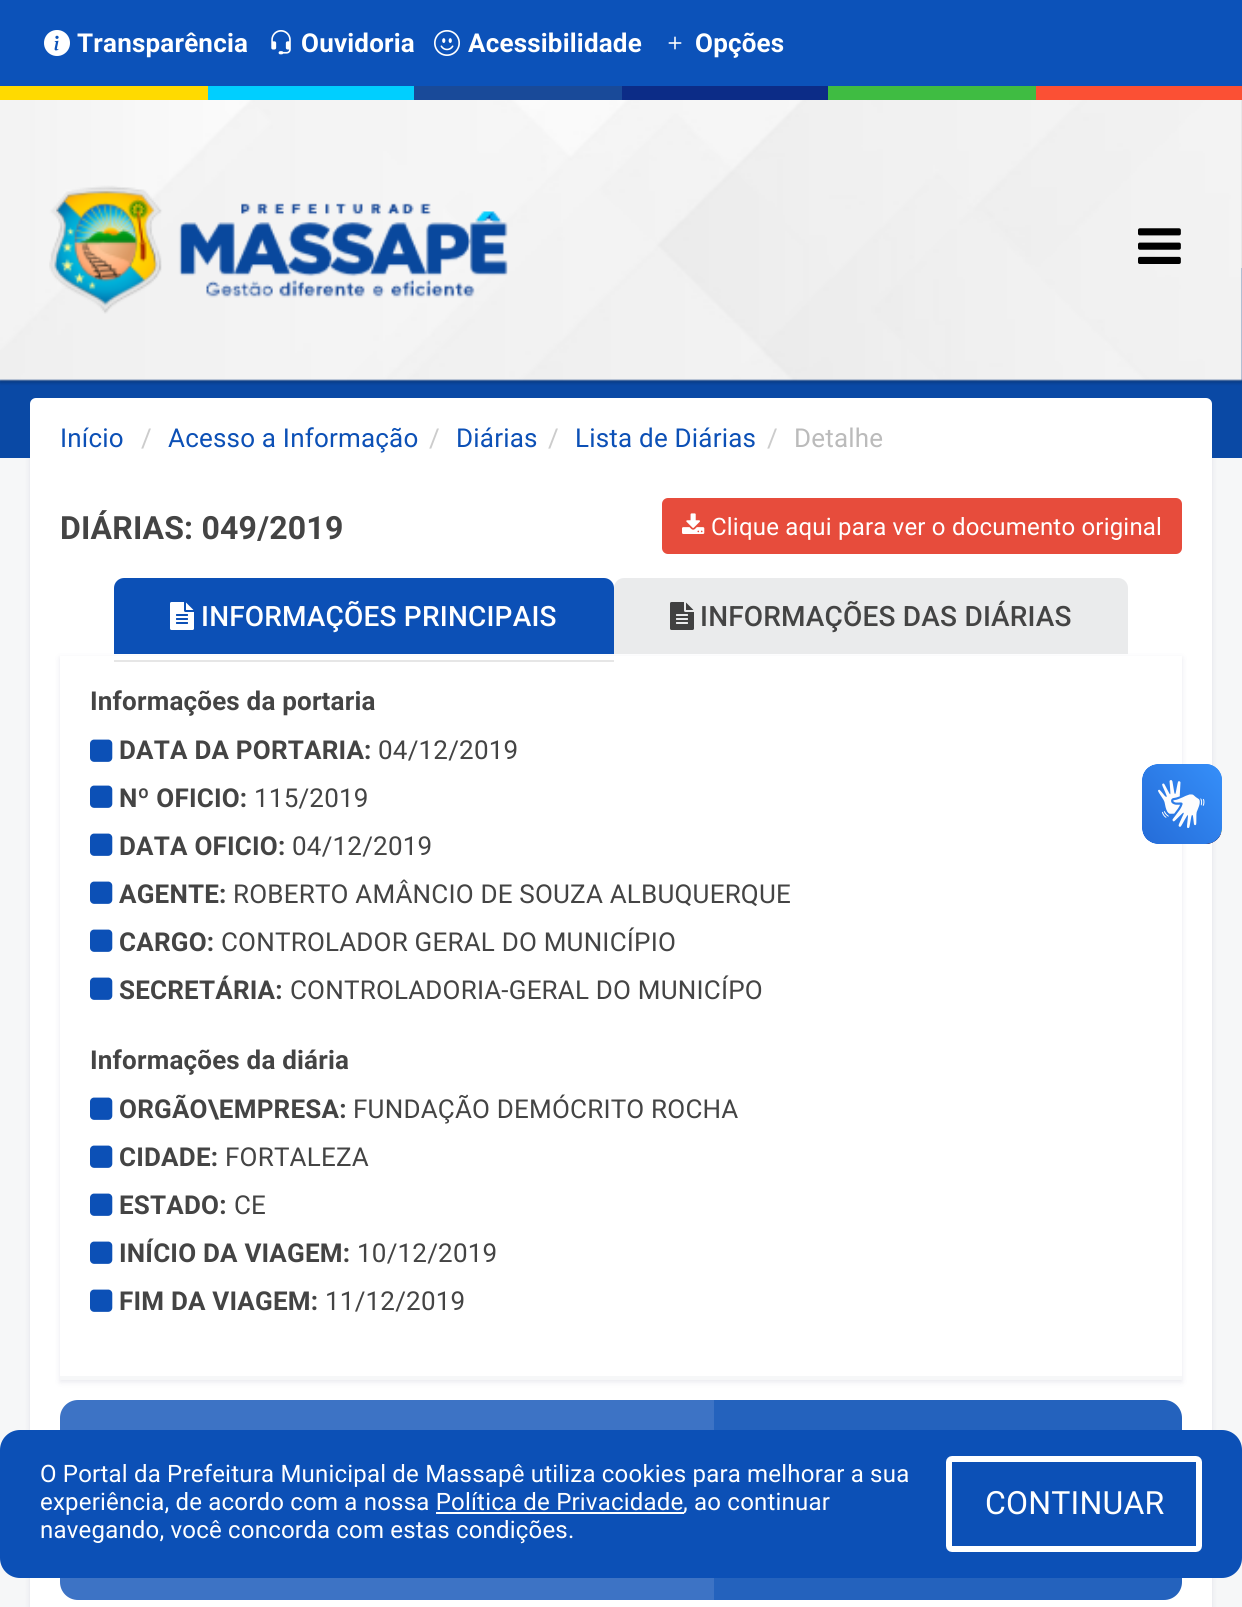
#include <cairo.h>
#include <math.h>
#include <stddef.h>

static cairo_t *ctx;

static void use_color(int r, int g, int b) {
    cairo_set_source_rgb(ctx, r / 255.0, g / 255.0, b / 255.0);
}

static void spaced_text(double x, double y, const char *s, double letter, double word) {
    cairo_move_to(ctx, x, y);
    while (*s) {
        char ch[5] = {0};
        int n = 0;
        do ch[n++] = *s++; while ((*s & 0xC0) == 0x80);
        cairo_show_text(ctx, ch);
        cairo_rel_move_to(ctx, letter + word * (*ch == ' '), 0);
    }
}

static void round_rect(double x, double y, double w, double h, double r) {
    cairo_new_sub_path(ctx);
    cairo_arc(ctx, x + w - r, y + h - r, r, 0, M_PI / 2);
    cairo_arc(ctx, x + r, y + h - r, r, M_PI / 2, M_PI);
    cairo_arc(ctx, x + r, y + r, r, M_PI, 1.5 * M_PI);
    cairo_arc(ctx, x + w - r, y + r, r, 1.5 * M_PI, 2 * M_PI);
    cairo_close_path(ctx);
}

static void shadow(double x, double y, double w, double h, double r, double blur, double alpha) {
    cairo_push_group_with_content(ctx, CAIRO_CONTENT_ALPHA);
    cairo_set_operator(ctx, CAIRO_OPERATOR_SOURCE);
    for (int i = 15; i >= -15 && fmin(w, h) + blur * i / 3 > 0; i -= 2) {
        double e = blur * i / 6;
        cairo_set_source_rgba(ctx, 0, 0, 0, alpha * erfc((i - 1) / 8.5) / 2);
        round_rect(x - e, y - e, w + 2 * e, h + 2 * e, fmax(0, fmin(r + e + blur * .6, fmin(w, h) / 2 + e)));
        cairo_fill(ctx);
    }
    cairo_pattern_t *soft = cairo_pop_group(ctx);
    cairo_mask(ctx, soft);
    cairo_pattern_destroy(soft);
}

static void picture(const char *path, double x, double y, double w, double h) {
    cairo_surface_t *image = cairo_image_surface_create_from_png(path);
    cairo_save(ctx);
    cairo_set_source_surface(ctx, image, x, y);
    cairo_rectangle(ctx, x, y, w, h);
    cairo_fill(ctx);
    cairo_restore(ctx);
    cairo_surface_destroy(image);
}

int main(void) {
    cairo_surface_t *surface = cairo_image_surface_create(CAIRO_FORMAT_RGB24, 1242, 1607);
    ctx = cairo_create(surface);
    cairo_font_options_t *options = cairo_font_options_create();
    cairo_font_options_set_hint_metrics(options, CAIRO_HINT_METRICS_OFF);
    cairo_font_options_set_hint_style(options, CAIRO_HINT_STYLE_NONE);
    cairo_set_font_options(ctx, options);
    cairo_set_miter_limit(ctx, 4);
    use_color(246, 247, 248);
    cairo_paint(ctx);
    use_color(3, 0, 71);
    shadow(30, 400, 1182, 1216, 0, 3, 0.09);
    use_color(10, 73, 165);
    cairo_rectangle(ctx, 0, 268, 1242, 190);
    cairo_fill(ctx);
    use_color(0, 0, 0);
    shadow(0, 2, 1242, 380, 0, 2, 0.3);
    picture("img1.png", 0, 100, 1242, 282);
    use_color(12, 82, 185);
    cairo_rectangle(ctx, 0, 0, 1242, 86);
    cairo_fill(ctx);
    picture("img2.png", 44, 30, 26, 26);
    cairo_select_font_face(ctx, "Roboto", CAIRO_FONT_SLANT_NORMAL, CAIRO_FONT_WEIGHT_BOLD);
    cairo_set_font_size(ctx, 26);
    use_color(255, 255, 255);
    spaced_text(77, 52, "Transparência", 0.2, 0);
    picture("img3.png", 271, 30, 20, 25);
    spaced_text(301, 52, "Ouvidoria", 0.2, 0);
    picture("img4.png", 434, 30, 26, 26);
    spaced_text(468, 52, "Acessibilidade", 0.2, 0);
    picture("img5.png", 668, 36, 14, 14);
    spaced_text(695, 52, "Opções", 0.2, 0);
    use_color(255, 218, 0);
    cairo_rectangle(ctx, 0, 86, 208, 14);
    cairo_fill(ctx);
    use_color(0, 207, 255);
    cairo_rectangle(ctx, 208, 86, 206, 14);
    cairo_fill(ctx);
    use_color(25, 74, 153);
    cairo_rectangle(ctx, 414, 86, 208, 14);
    cairo_fill(ctx);
    use_color(12, 44, 135);
    cairo_rectangle(ctx, 622, 86, 206, 14);
    cairo_fill(ctx);
    use_color(63, 188, 66);
    cairo_rectangle(ctx, 828, 86, 208, 14);
    cairo_fill(ctx);
    use_color(251, 80, 52);
    cairo_rectangle(ctx, 1036, 86, 206, 14);
    cairo_fill(ctx);
    picture("img6.png", 49, 185, 459, 129);
    picture("img7.png", 1138, 228, 43, 36);
    use_color(255, 255, 255);
    cairo_rectangle(ctx, 30, 472, 1182, 1135);
    cairo_fill(ctx);
    round_rect(30, 398, 1182, 80, 6);
    cairo_fill(ctx);
    cairo_select_font_face(ctx, "Roboto", CAIRO_FONT_SLANT_NORMAL, CAIRO_FONT_WEIGHT_NORMAL);
    use_color(12, 80, 182);
    spaced_text(60, 447, "Início", 0.2, 0);
    use_color(204, 204, 204);
    spaced_text(141, 447, "/", 0.2, 0);
    use_color(12, 80, 182);
    spaced_text(168, 447, "Acesso a Informação", 0.2, 0);
    use_color(204, 204, 204);
    spaced_text(429, 447, "/", 0.2, 0);
    use_color(12, 80, 182);
    spaced_text(456, 447, "Diárias", 0.2, 0);
    use_color(204, 204, 204);
    spaced_text(548, 447, "/", 0.2, 0);
    use_color(12, 80, 182);
    spaced_text(575, 447, "Lista de Diárias", 0.2, 0);
    use_color(204, 204, 204);
    spaced_text(767, 447, "/", 0.2, 0);
    use_color(187, 187, 187);
    spaced_text(794, 447, "Detalhe", 0.2, 0);
    cairo_select_font_face(ctx, "Roboto", CAIRO_FONT_SLANT_NORMAL, CAIRO_FONT_WEIGHT_BOLD);
    cairo_set_font_size(ctx, 32);
    use_color(68, 68, 68);
    spaced_text(60, 539, "DIÁRIAS: 049/2019", 0.2, 0);
    use_color(231, 76, 60);
    round_rect(662, 498, 520, 56, 6);
    cairo_fill(ctx);
    picture("img8.png", 682, 513, 23, 21);
    cairo_select_font_face(ctx, "Roboto", CAIRO_FONT_SLANT_NORMAL, CAIRO_FONT_WEIGHT_NORMAL);
    cairo_set_font_size(ctx, 24);
    use_color(255, 255, 255);
    spaced_text(711, 535, "Clique aqui para ver o documento original", 0.2, 0);
    cairo_save(ctx);
    cairo_set_fill_rule(ctx, CAIRO_FILL_RULE_EVEN_ODD);
    cairo_new_path(ctx);
    cairo_move_to(ctx, 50, 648);
    cairo_line_to(ctx, 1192, 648);
    cairo_line_to(ctx, 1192, 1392);
    cairo_line_to(ctx, 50, 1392);
    cairo_close_path(ctx);
    cairo_move_to(ctx, 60, 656);
    cairo_line_to(ctx, 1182, 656);
    cairo_line_to(ctx, 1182, 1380);
    cairo_line_to(ctx, 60, 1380);
    cairo_close_path(ctx);
    cairo_clip(ctx);
    use_color(3, 0, 71);
    shadow(60, 658, 1122, 724, 0, 3, 0.09);
    cairo_restore(ctx);
    use_color(230, 230, 230);
    cairo_rectangle(ctx, 114, 660, 500, 2);
    cairo_fill(ctx);
    use_color(12, 80, 182);
    cairo_new_path(ctx);
    cairo_move_to(ctx, 124, 578);
    cairo_line_to(ctx, 604, 578);
    cairo_curve_to(ctx, 609.5, 578, 614, 582.5, 614, 588);
    cairo_line_to(ctx, 614, 654);
    cairo_line_to(ctx, 114, 654);
    cairo_line_to(ctx, 114, 588);
    cairo_curve_to(ctx, 114, 582.5, 118.5, 578, 124, 578);
    cairo_close_path(ctx);
    cairo_fill(ctx);
    picture("img9.png", 170, 602, 24, 28);
    cairo_select_font_face(ctx, "Roboto Medium", CAIRO_FONT_SLANT_NORMAL, CAIRO_FONT_WEIGHT_NORMAL);
    cairo_set_font_size(ctx, 28);
    use_color(255, 255, 255);
    spaced_text(201, 626, "INFORMAÇÕES PRINCIPAIS", 0.2, 0);
    use_color(234, 235, 236);
    cairo_new_path(ctx);
    cairo_move_to(ctx, 624, 578);
    cairo_line_to(ctx, 1118, 578);
    cairo_curve_to(ctx, 1123.5, 578, 1128, 582.5, 1128, 588);
    cairo_line_to(ctx, 1128, 654);
    cairo_line_to(ctx, 614, 654);
    cairo_line_to(ctx, 614, 588);
    cairo_curve_to(ctx, 614, 582.5, 618.5, 578, 624, 578);
    cairo_close_path(ctx);
    cairo_fill(ctx);
    picture("img10.png", 670, 602, 24, 28);
    use_color(68, 68, 68);
    spaced_text(700, 626, "INFORMAÇÕES DAS DIÁRIAS", 0.2, 0);
    use_color(246, 247, 248);
    cairo_rectangle(ctx, 60, 1376, 1122, 4);
    cairo_fill(ctx);
    cairo_select_font_face(ctx, "Roboto", CAIRO_FONT_SLANT_NORMAL, CAIRO_FONT_WEIGHT_BOLD);
    cairo_set_font_size(ctx, 26);
    use_color(68, 68, 68);
    spaced_text(90, 710, "Informações da portaria", 0.2, 0);
    picture("img11.png", 90, 739, 23, 23);
    spaced_text(119, 759, "DATA DA PORTARIA:", 0.2, 0);
    cairo_select_font_face(ctx, "Roboto", CAIRO_FONT_SLANT_NORMAL, CAIRO_FONT_WEIGHT_NORMAL);
    spaced_text(378, 759, "04/12/2019", 0.2, 0);
    picture("img11.png", 90, 785, 23, 23);
    cairo_select_font_face(ctx, "Roboto", CAIRO_FONT_SLANT_NORMAL, CAIRO_FONT_WEIGHT_BOLD);
    spaced_text(119, 807, "Nº OFICIO:", 0.2, 0);
    cairo_select_font_face(ctx, "Roboto", CAIRO_FONT_SLANT_NORMAL, CAIRO_FONT_WEIGHT_NORMAL);
    spaced_text(254, 807, "115/2019", 0.2, 0);
    picture("img11.png", 90, 833, 23, 23);
    cairo_select_font_face(ctx, "Roboto", CAIRO_FONT_SLANT_NORMAL, CAIRO_FONT_WEIGHT_BOLD);
    spaced_text(119, 855, "DATA OFICIO:", 0.2, 0);
    cairo_select_font_face(ctx, "Roboto", CAIRO_FONT_SLANT_NORMAL, CAIRO_FONT_WEIGHT_NORMAL);
    spaced_text(292, 855, "04/12/2019", 0.2, 0);
    picture("img11.png", 90, 881, 23, 23);
    cairo_select_font_face(ctx, "Roboto", CAIRO_FONT_SLANT_NORMAL, CAIRO_FONT_WEIGHT_BOLD);
    spaced_text(119, 903, "AGENTE:", 0.2, 0);
    cairo_select_font_face(ctx, "Roboto", CAIRO_FONT_SLANT_NORMAL, CAIRO_FONT_WEIGHT_NORMAL);
    spaced_text(233, 903, "ROBERTO AMÂNCIO DE SOUZA ALBUQUERQUE", 0.2, 0);
    picture("img11.png", 90, 929, 23, 23);
    cairo_select_font_face(ctx, "Roboto", CAIRO_FONT_SLANT_NORMAL, CAIRO_FONT_WEIGHT_BOLD);
    spaced_text(119, 951, "CARGO:", 0.2, 0);
    cairo_select_font_face(ctx, "Roboto", CAIRO_FONT_SLANT_NORMAL, CAIRO_FONT_WEIGHT_NORMAL);
    spaced_text(221, 951, "CONTROLADOR GERAL DO MUNICÍPIO", 0.2, 0);
    picture("img11.png", 90, 977, 23, 23);
    cairo_select_font_face(ctx, "Roboto", CAIRO_FONT_SLANT_NORMAL, CAIRO_FONT_WEIGHT_BOLD);
    spaced_text(119, 999, "SECRETÁRIA:", 0.2, 0);
    cairo_select_font_face(ctx, "Roboto", CAIRO_FONT_SLANT_NORMAL, CAIRO_FONT_WEIGHT_NORMAL);
    spaced_text(290, 999, "CONTROLADORIA-GERAL DO MUNICÍPO", 0.2, 0);
    cairo_select_font_face(ctx, "Roboto", CAIRO_FONT_SLANT_NORMAL, CAIRO_FONT_WEIGHT_BOLD);
    spaced_text(90, 1069, "Informações da diária", 0.2, 0);
    picture("img11.png", 90, 1097, 23, 23);
    spaced_text(119, 1118, "ORGÃO\\EMPRESA:", 0.2, 0);
    cairo_select_font_face(ctx, "Roboto", CAIRO_FONT_SLANT_NORMAL, CAIRO_FONT_WEIGHT_NORMAL);
    spaced_text(353, 1118, "FUNDAÇÃO DEMÓCRITO ROCHA", 0.2, 0);
    picture("img11.png", 90, 1145, 23, 23);
    cairo_select_font_face(ctx, "Roboto", CAIRO_FONT_SLANT_NORMAL, CAIRO_FONT_WEIGHT_BOLD);
    spaced_text(119, 1166, "CIDADE:", 0.2, 0);
    cairo_select_font_face(ctx, "Roboto", CAIRO_FONT_SLANT_NORMAL, CAIRO_FONT_WEIGHT_NORMAL);
    spaced_text(225, 1166, "FORTALEZA", 0.2, 0);
    picture("img11.png", 90, 1193, 23, 23);
    cairo_select_font_face(ctx, "Roboto", CAIRO_FONT_SLANT_NORMAL, CAIRO_FONT_WEIGHT_BOLD);
    spaced_text(119, 1214, "ESTADO:", 0.2, 0);
    cairo_select_font_face(ctx, "Roboto", CAIRO_FONT_SLANT_NORMAL, CAIRO_FONT_WEIGHT_NORMAL);
    spaced_text(234, 1214, "CE", 0.2, 0);
    picture("img11.png", 90, 1241, 23, 23);
    cairo_select_font_face(ctx, "Roboto", CAIRO_FONT_SLANT_NORMAL, CAIRO_FONT_WEIGHT_BOLD);
    spaced_text(119, 1262, "INÍCIO DA VIAGEM:", 0.2, 0);
    cairo_select_font_face(ctx, "Roboto", CAIRO_FONT_SLANT_NORMAL, CAIRO_FONT_WEIGHT_NORMAL);
    spaced_text(357, 1262, "10/12/2019", 0.2, 0);
    picture("img11.png", 90, 1289, 23, 23);
    cairo_select_font_face(ctx, "Roboto", CAIRO_FONT_SLANT_NORMAL, CAIRO_FONT_WEIGHT_BOLD);
    spaced_text(119, 1310, "FIM DA VIAGEM:", 0.2, 0);
    cairo_select_font_face(ctx, "Roboto", CAIRO_FONT_SLANT_NORMAL, CAIRO_FONT_WEIGHT_NORMAL);
    spaced_text(325, 1310, "11/12/2019", 0.2, 0);
    use_color(61, 115, 197);
    cairo_new_path(ctx);
    cairo_move_to(ctx, 78, 1400);
    cairo_line_to(ctx, 714, 1400);
    cairo_line_to(ctx, 714, 1480);
    cairo_line_to(ctx, 78, 1480);
    cairo_curve_to(ctx, 68, 1480, 60, 1472, 60, 1462);
    cairo_line_to(ctx, 60, 1418);
    cairo_curve_to(ctx, 60, 1408, 68, 1400, 78, 1400);
    cairo_close_path(ctx);
    cairo_fill(ctx);
    use_color(36, 98, 189);
    cairo_new_path(ctx);
    cairo_move_to(ctx, 714, 1400);
    cairo_line_to(ctx, 1164, 1400);
    cairo_curve_to(ctx, 1174, 1400, 1182, 1408, 1182, 1418);
    cairo_line_to(ctx, 1182, 1462);
    cairo_curve_to(ctx, 1182, 1472, 1174, 1480, 1164, 1480);
    cairo_line_to(ctx, 714, 1480);
    cairo_close_path(ctx);
    cairo_fill(ctx);
    use_color(61, 115, 197);
    cairo_new_path(ctx);
    cairo_move_to(ctx, 78, 1520);
    cairo_line_to(ctx, 714, 1520);
    cairo_line_to(ctx, 714, 1600);
    cairo_line_to(ctx, 78, 1600);
    cairo_curve_to(ctx, 68, 1600, 60, 1592, 60, 1582);
    cairo_line_to(ctx, 60, 1538);
    cairo_curve_to(ctx, 60, 1528, 68, 1520, 78, 1520);
    cairo_close_path(ctx);
    cairo_fill(ctx);
    use_color(36, 98, 189);
    cairo_new_path(ctx);
    cairo_move_to(ctx, 714, 1520);
    cairo_line_to(ctx, 1164, 1520);
    cairo_curve_to(ctx, 1174, 1520, 1182, 1528, 1182, 1538);
    cairo_line_to(ctx, 1182, 1582);
    cairo_curve_to(ctx, 1182, 1592, 1174, 1600, 1164, 1600);
    cairo_line_to(ctx, 714, 1600);
    cairo_close_path(ctx);
    cairo_fill(ctx);
    picture("img12.png", 1142, 764, 80, 80);
    picture("img13.png", 1142, 764, 80, 80);
    use_color(12, 80, 182);
    round_rect(0, 1430, 1242, 148, 20);
    cairo_fill(ctx);
    cairo_set_font_size(ctx, 24);
    use_color(255, 255, 255);
    spaced_text(40, 1482, "O Portal da Prefeitura Municipal de Massapê utiliza cookies para melhorar a sua", 0.2, 0);
    spaced_text(40, 1510, "experiência, de acordo com a nossa Política de Privacidade", 0.2, 0);
    cairo_rectangle(ctx, 436, 1512, 248, 2);
    cairo_fill(ctx);
    spaced_text(683, 1510, ", ao continuar", 0.2, 0);
    spaced_text(40, 1538, "navegando, você concorda com estas condições.", 0.2, 0);
    round_rect(949, 1459, 250, 90, 3);
    cairo_set_line_width(ctx, 6);
    cairo_stroke(ctx);
    cairo_set_font_size(ctx, 32);
    spaced_text(985, 1514, "CONTINUAR", 0.2, 0);
    cairo_surface_write_to_png(surface, "result.png");
    cairo_font_options_destroy(options);
    cairo_destroy(ctx);
    cairo_surface_destroy(surface);
    return 0;
}
